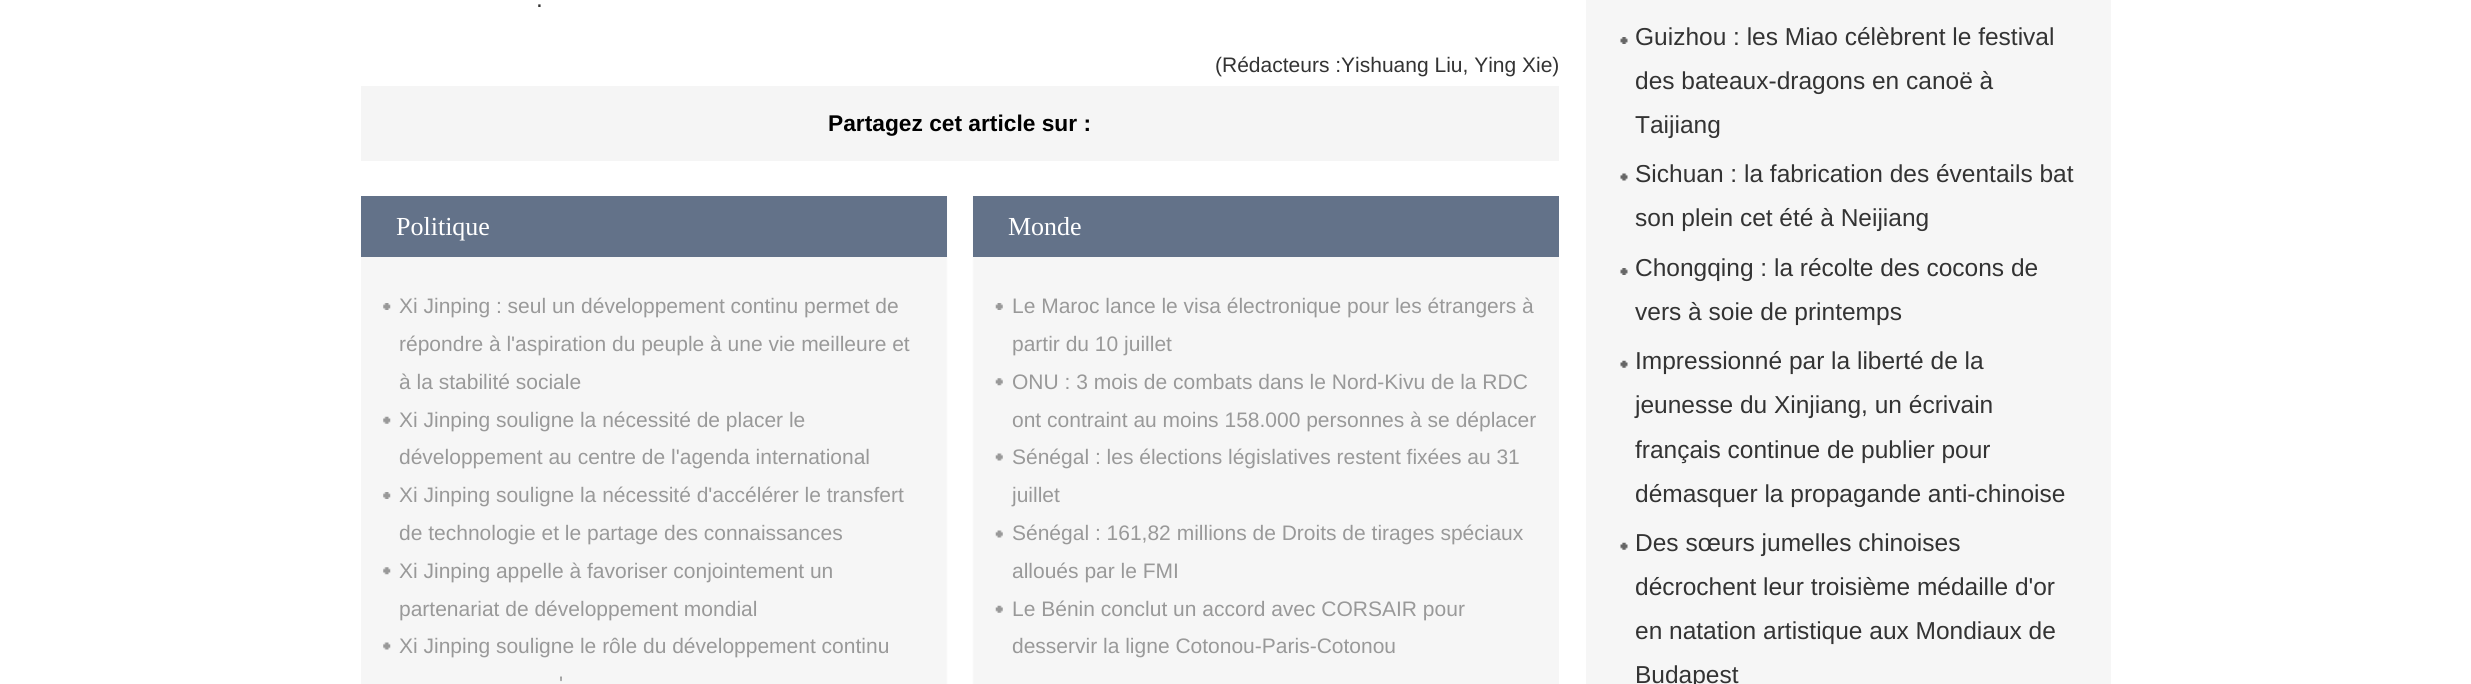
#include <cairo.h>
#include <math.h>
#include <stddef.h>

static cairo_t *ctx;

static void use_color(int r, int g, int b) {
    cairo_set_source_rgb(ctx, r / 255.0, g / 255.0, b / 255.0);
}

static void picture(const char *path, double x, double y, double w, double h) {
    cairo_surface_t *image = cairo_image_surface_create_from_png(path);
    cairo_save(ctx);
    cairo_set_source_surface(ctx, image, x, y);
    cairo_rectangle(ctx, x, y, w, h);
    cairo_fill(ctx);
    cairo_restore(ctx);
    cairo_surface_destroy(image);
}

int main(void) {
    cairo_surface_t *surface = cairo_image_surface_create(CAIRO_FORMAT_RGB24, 2471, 684);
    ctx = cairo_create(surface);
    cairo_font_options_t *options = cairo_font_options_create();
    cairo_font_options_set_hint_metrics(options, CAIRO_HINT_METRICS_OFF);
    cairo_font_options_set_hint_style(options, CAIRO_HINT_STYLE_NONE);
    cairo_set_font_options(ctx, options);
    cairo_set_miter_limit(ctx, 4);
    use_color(255, 255, 255);
    cairo_paint(ctx);
    cairo_select_font_face(ctx, "Liberation Sans", CAIRO_FONT_SLANT_NORMAL, CAIRO_FONT_WEIGHT_NORMAL);
    cairo_set_font_size(ctx, 24.5);
    use_color(51, 51, 51);
    cairo_move_to(ctx, 536, 7);
    cairo_show_text(ctx, ".");
    cairo_set_font_size(ctx, 21);
    cairo_move_to(ctx, 1215, 72);
    cairo_show_text(ctx, "(Rédacteurs :Yishuang Liu, Ying Xie)");
    use_color(245, 245, 245);
    cairo_rectangle(ctx, 361, 86, 1198, 75);
    cairo_fill(ctx);
    cairo_select_font_face(ctx, "Liberation Sans", CAIRO_FONT_SLANT_NORMAL, CAIRO_FONT_WEIGHT_BOLD);
    cairo_set_font_size(ctx, 22.75);
    use_color(0, 0, 0);
    cairo_move_to(ctx, 828, 131);
    cairo_show_text(ctx, "Partagez cet article sur :");
    picture("img1.png", 361, 196, 1198, 488);
    use_color(99, 114, 137);
    cairo_rectangle(ctx, 361, 196, 586, 61);
    cairo_fill(ctx);
    cairo_select_font_face(ctx, "Liberation Serif", CAIRO_FONT_SLANT_NORMAL, CAIRO_FONT_WEIGHT_NORMAL);
    cairo_set_font_size(ctx, 26);
    use_color(255, 255, 255);
    cairo_move_to(ctx, 396, 235);
    cairo_show_text(ctx, "Politique");
    picture("img2.png", 383, 303, 8, 7);
    cairo_select_font_face(ctx, "Liberation Sans", CAIRO_FONT_SLANT_NORMAL, CAIRO_FONT_WEIGHT_NORMAL);
    cairo_set_font_size(ctx, 21);
    use_color(153, 153, 153);
    cairo_move_to(ctx, 399, 313);
    cairo_show_text(ctx, "Xi Jinping : seul un développement continu permet de");
    cairo_move_to(ctx, 399, 351);
    cairo_show_text(ctx, "répondre à l'aspiration du peuple à une vie meilleure et");
    cairo_move_to(ctx, 399, 389);
    cairo_show_text(ctx, "à la stabilité sociale");
    picture("img3.png", 383, 416, 8, 8);
    cairo_move_to(ctx, 399, 427);
    cairo_show_text(ctx, "Xi Jinping souligne la nécessité de placer le");
    cairo_move_to(ctx, 399, 464);
    cairo_show_text(ctx, "développement au centre de l'agenda international");
    picture("img2.png", 383, 492, 8, 7);
    cairo_move_to(ctx, 399, 502);
    cairo_show_text(ctx, "Xi Jinping souligne la nécessité d'accélérer le transfert");
    cairo_move_to(ctx, 399, 540);
    cairo_show_text(ctx, "de technologie et le partage des connaissances");
    picture("img4.png", 383, 567, 8, 8);
    cairo_move_to(ctx, 399, 578);
    cairo_show_text(ctx, "Xi Jinping appelle à favoriser conjointement un");
    cairo_move_to(ctx, 399, 616);
    cairo_show_text(ctx, "partenariat de développement mondial");
    picture("img5.png", 383, 642, 8, 8);
    cairo_move_to(ctx, 399, 653);
    cairo_show_text(ctx, "Xi Jinping souligne le rôle du développement continu");
    cairo_move_to(ctx, 559, 691);
    cairo_show_text(ctx, "'");
    use_color(99, 114, 137);
    cairo_rectangle(ctx, 973, 196, 586, 61);
    cairo_fill(ctx);
    cairo_select_font_face(ctx, "Liberation Serif", CAIRO_FONT_SLANT_NORMAL, CAIRO_FONT_WEIGHT_NORMAL);
    cairo_set_font_size(ctx, 26);
    use_color(255, 255, 255);
    cairo_move_to(ctx, 1008, 235);
    cairo_show_text(ctx, "Monde");
    picture("img6.png", 995, 303, 8, 7);
    cairo_select_font_face(ctx, "Liberation Sans", CAIRO_FONT_SLANT_NORMAL, CAIRO_FONT_WEIGHT_NORMAL);
    cairo_set_font_size(ctx, 21);
    use_color(153, 153, 153);
    cairo_move_to(ctx, 1012, 313);
    cairo_show_text(ctx, "Le Maroc lance le visa électronique pour les étrangers à");
    cairo_move_to(ctx, 1012, 351);
    cairo_show_text(ctx, "partir du 10 juillet");
    picture("img7.png", 995, 378, 8, 8);
    cairo_move_to(ctx, 1012, 389);
    cairo_show_text(ctx, "ONU : 3 mois de combats dans le Nord-Kivu de la RDC");
    cairo_move_to(ctx, 1012, 427);
    cairo_show_text(ctx, "ont contraint au moins 158.000 personnes à se déplacer");
    picture("img8.png", 995, 453, 8, 8);
    cairo_move_to(ctx, 1012, 464);
    cairo_show_text(ctx, "Sénégal : les élections législatives restent fixées au 31");
    cairo_move_to(ctx, 1012, 502);
    cairo_show_text(ctx, "juillet");
    picture("img8.png", 995, 530, 8, 8);
    cairo_move_to(ctx, 1012, 540);
    cairo_show_text(ctx, "Sénégal : 161,82 millions de Droits de tirages spéciaux");
    cairo_move_to(ctx, 1012, 578);
    cairo_show_text(ctx, "alloués par le FMI");
    picture("img9.png", 995, 605, 8, 8);
    cairo_move_to(ctx, 1012, 616);
    cairo_show_text(ctx, "Le Bénin conclut un accord avec CORSAIR pour");
    cairo_move_to(ctx, 1012, 653);
    cairo_show_text(ctx, "desservir la ligne Cotonou-Paris-Cotonou");
    use_color(246, 246, 246);
    cairo_rectangle(ctx, 1586, 0, 525, 684);
    cairo_fill(ctx);
    picture("img10.png", 1620, 37, 8, 7);
    cairo_set_font_size(ctx, 24.5);
    use_color(51, 51, 51);
    cairo_move_to(ctx, 1635, 45);
    cairo_show_text(ctx, "Guizhou : les Miao célèbrent le festival");
    cairo_move_to(ctx, 1635, 89);
    cairo_show_text(ctx, "des bateaux-dragons en canoë à");
    cairo_move_to(ctx, 1635, 133);
    cairo_show_text(ctx, "Taijiang");
    picture("img11.png", 1620, 173, 8, 8);
    cairo_move_to(ctx, 1635, 182);
    cairo_show_text(ctx, "Sichuan : la fabrication des éventails bat");
    cairo_move_to(ctx, 1635, 226);
    cairo_show_text(ctx, "son plein cet été à Neijiang");
    picture("img10.png", 1620, 268, 8, 7);
    cairo_move_to(ctx, 1635, 276);
    cairo_show_text(ctx, "Chongqing : la récolte des cocons de");
    cairo_move_to(ctx, 1635, 320);
    cairo_show_text(ctx, "vers à soie de printemps");
    picture("img12.png", 1620, 360, 8, 8);
    cairo_move_to(ctx, 1635, 369);
    cairo_show_text(ctx, "Impressionné par la liberté de la");
    cairo_move_to(ctx, 1635, 413);
    cairo_show_text(ctx, "jeunesse du Xinjiang, un écrivain");
    cairo_move_to(ctx, 1635, 458);
    cairo_show_text(ctx, "français continue de publier pour");
    cairo_move_to(ctx, 1635, 502);
    cairo_show_text(ctx, "démasquer la propagande anti-chinoise");
    picture("img12.png", 1620, 542, 8, 8);
    cairo_move_to(ctx, 1635, 551);
    cairo_show_text(ctx, "Des sœurs jumelles chinoises");
    cairo_move_to(ctx, 1635, 595);
    cairo_show_text(ctx, "décrochent leur troisième médaille d'or");
    cairo_move_to(ctx, 1635, 639);
    cairo_show_text(ctx, "en natation artistique aux Mondiaux de");
    cairo_move_to(ctx, 1635, 683);
    cairo_show_text(ctx, "Budapest");
    cairo_surface_write_to_png(surface, "result.png");
    cairo_font_options_destroy(options);
    cairo_destroy(ctx);
    cairo_surface_destroy(surface);
    return 0;
}
